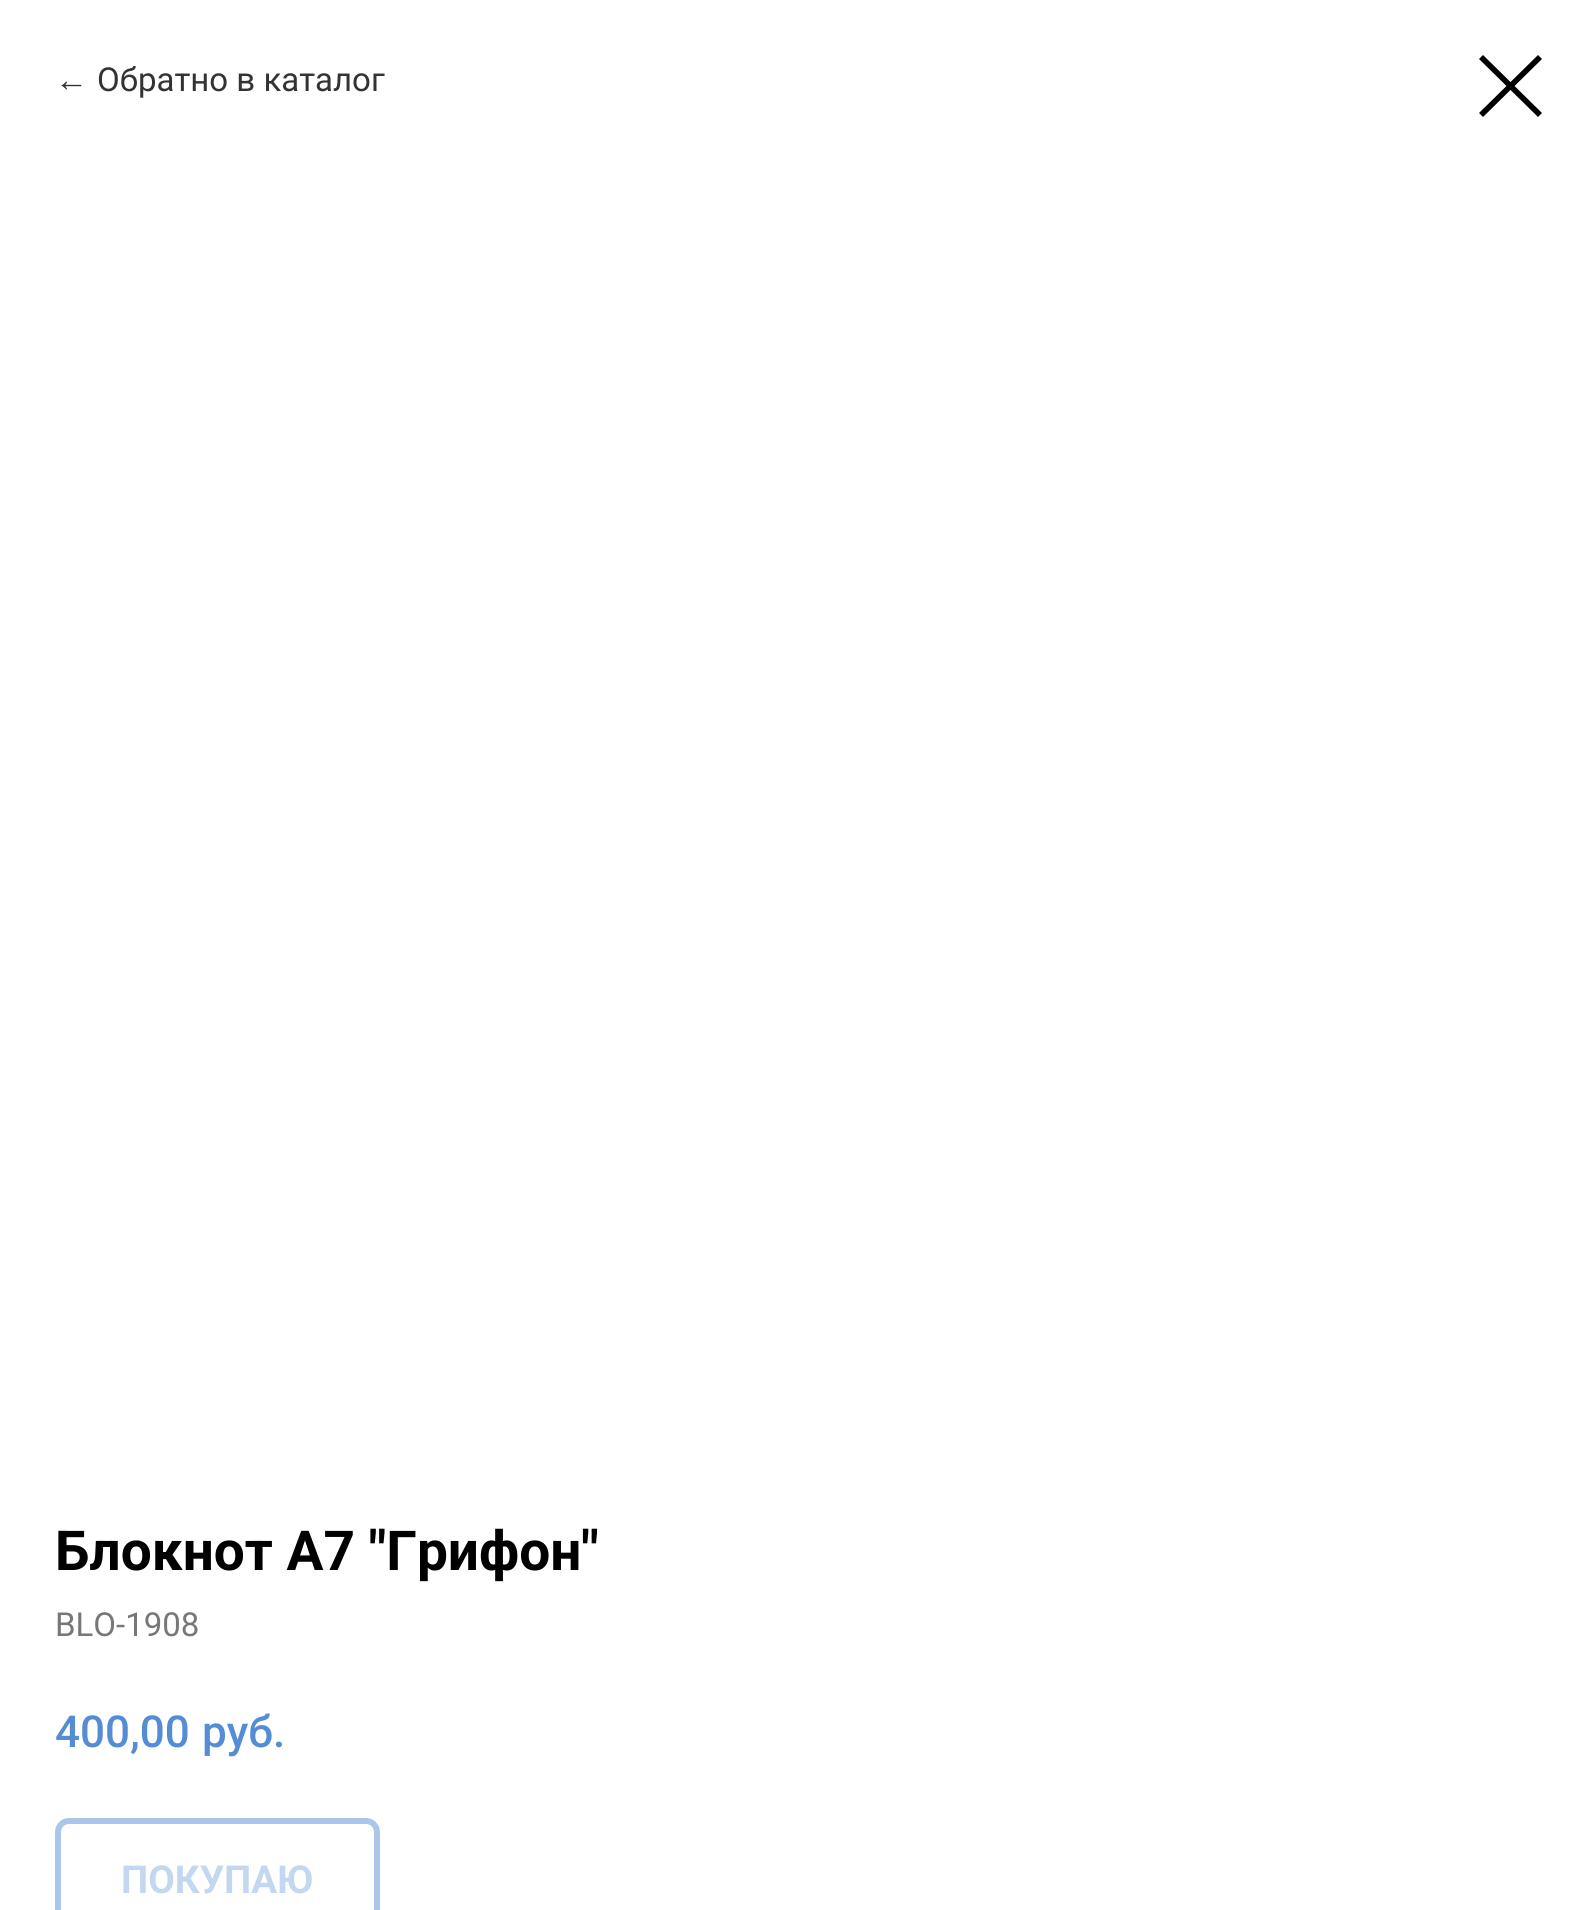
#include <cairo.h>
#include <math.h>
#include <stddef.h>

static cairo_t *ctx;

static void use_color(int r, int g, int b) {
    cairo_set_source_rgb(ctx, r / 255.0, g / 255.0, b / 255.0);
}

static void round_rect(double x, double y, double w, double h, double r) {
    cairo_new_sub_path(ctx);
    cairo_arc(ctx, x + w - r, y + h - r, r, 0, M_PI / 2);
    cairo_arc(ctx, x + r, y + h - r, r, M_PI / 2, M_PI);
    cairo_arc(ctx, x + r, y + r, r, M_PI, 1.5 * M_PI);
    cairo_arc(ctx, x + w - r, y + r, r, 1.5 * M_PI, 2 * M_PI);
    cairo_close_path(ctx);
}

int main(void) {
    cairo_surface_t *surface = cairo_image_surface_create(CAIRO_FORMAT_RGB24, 1596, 1910);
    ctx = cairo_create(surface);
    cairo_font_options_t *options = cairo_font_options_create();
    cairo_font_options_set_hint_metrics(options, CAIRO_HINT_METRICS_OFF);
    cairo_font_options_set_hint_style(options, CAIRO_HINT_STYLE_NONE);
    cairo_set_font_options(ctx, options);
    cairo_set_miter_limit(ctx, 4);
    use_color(255, 255, 255);
    cairo_paint(ctx);
    cairo_select_font_face(ctx, "Liberation Sans", CAIRO_FONT_SLANT_NORMAL, CAIRO_FONT_WEIGHT_NORMAL);
    cairo_set_font_size(ctx, 33);
    use_color(51, 51, 51);
    cairo_move_to(ctx, 55, 91);
    cairo_show_text(ctx, "←");
    cairo_select_font_face(ctx, "Roboto", CAIRO_FONT_SLANT_NORMAL, CAIRO_FONT_WEIGHT_NORMAL);
    cairo_move_to(ctx, 97, 91);
    cairo_show_text(ctx, "Обратно в каталог");
    use_color(0, 0, 0);
    cairo_set_fill_rule(ctx, CAIRO_FILL_RULE_EVEN_ODD);
    cairo_new_path(ctx);
    cairo_move_to(ctx, 1479, 59);
    cairo_line_to(ctx, 1483, 55);
    cairo_line_to(ctx, 1542, 113);
    cairo_line_to(ctx, 1538, 117);
    cairo_close_path(ctx);
    cairo_fill(ctx);
    cairo_new_path(ctx);
    cairo_move_to(ctx, 1538, 55);
    cairo_line_to(ctx, 1542, 59);
    cairo_line_to(ctx, 1483, 117);
    cairo_line_to(ctx, 1479, 113);
    cairo_close_path(ctx);
    cairo_fill(ctx);
    cairo_select_font_face(ctx, "Roboto", CAIRO_FONT_SLANT_NORMAL, CAIRO_FONT_WEIGHT_BOLD);
    cairo_set_font_size(ctx, 55);
    cairo_move_to(ctx, 55, 1570);
    cairo_show_text(ctx, "Блокнот А7 \"Грифон\"");
    cairo_select_font_face(ctx, "Roboto", CAIRO_FONT_SLANT_NORMAL, CAIRO_FONT_WEIGHT_NORMAL);
    cairo_set_font_size(ctx, 33);
    use_color(119, 119, 119);
    cairo_move_to(ctx, 55, 1636);
    cairo_show_text(ctx, "BLO-1908");
    cairo_select_font_face(ctx, "Roboto Medium", CAIRO_FONT_SLANT_NORMAL, CAIRO_FONT_WEIGHT_NORMAL);
    cairo_set_font_size(ctx, 44);
    use_color(84, 141, 212);
    cairo_move_to(ctx, 55, 1747);
    cairo_show_text(ctx, "400,00");
    cairo_move_to(ctx, 202, 1747);
    cairo_show_text(ctx, "руб.");
    round_rect(58, 1821, 319, 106, 11);
    use_color(170, 198, 234);
    cairo_set_line_width(ctx, 6);
    cairo_stroke(ctx);
    cairo_select_font_face(ctx, "Roboto", CAIRO_FONT_SLANT_NORMAL, CAIRO_FONT_WEIGHT_BOLD);
    cairo_set_font_size(ctx, 38.5);
    use_color(195, 215, 240);
    cairo_move_to(ctx, 121, 1893);
    cairo_show_text(ctx, "ПОКУПАЮ");
    cairo_surface_write_to_png(surface, "result.png");
    cairo_font_options_destroy(options);
    cairo_destroy(ctx);
    cairo_surface_destroy(surface);
    return 0;
}
